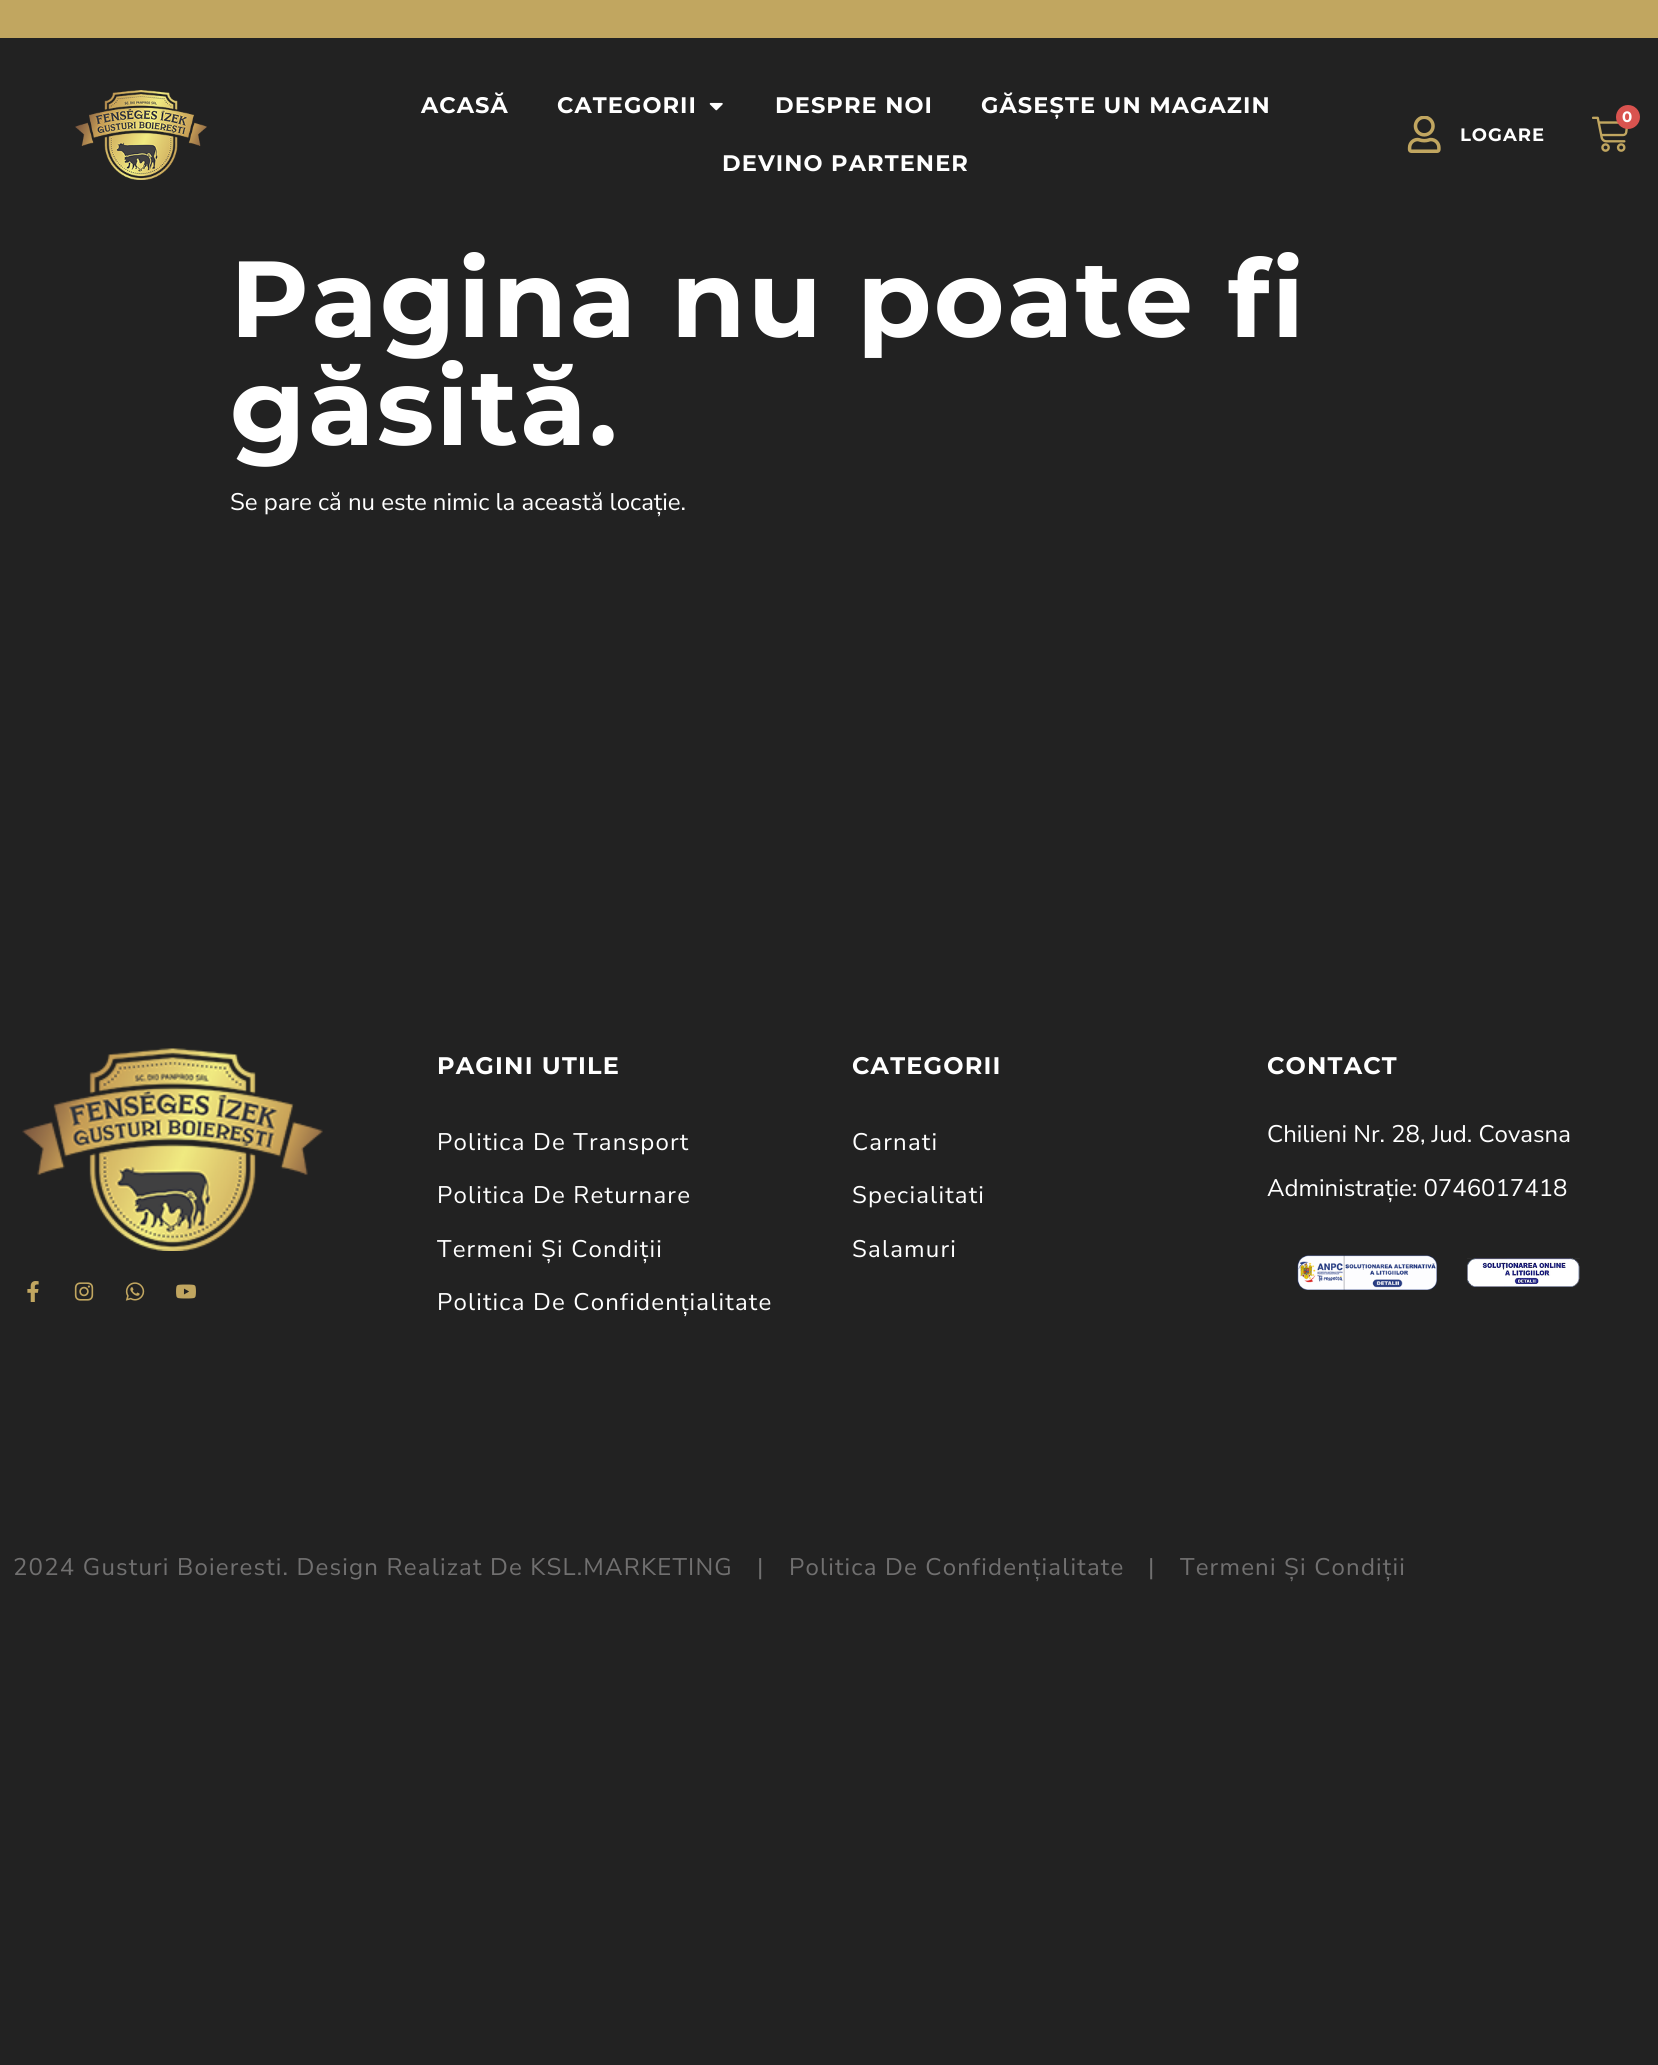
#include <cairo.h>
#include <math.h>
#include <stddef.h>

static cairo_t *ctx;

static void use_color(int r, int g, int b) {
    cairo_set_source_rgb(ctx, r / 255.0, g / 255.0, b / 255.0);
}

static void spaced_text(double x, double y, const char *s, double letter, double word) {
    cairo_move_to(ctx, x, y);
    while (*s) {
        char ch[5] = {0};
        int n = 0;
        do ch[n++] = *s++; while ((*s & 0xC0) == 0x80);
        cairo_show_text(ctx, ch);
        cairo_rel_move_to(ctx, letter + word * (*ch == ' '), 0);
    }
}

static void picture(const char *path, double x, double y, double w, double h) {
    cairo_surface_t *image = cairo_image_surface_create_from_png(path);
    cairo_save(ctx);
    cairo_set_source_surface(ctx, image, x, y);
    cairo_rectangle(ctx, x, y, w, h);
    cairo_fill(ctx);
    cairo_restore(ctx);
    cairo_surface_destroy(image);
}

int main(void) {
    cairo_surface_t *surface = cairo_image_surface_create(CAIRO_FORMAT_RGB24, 1658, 2065);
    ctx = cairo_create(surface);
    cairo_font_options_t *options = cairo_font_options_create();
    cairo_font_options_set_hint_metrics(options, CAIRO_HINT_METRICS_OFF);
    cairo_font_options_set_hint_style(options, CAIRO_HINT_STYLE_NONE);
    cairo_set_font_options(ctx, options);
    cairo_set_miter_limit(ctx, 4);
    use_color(34, 34, 34);
    cairo_paint(ctx);
    use_color(193, 166, 96);
    cairo_rectangle(ctx, 0, 0, 1658, 38);
    cairo_fill(ctx);
    picture("img1.png", 75, 90, 132, 90);
    cairo_select_font_face(ctx, "Montserrat", CAIRO_FONT_SLANT_NORMAL, CAIRO_FONT_WEIGHT_BOLD);
    cairo_set_font_size(ctx, 22.5);
    use_color(255, 255, 255);
    spaced_text(421, 113, "ACASĂ", 1.1, 0);
    spaced_text(557, 113, "CATEGORII", 1.1, 0);
    picture("img2.png", 709, 102, 14, 9);
    spaced_text(775, 113, "DESPRE NOI", 1.1, 0);
    spaced_text(981, 113, "GĂSEȘTE UN MAGAZIN", 1.1, 0);
    spaced_text(722, 171, "DEVINO PARTENER", 1.1, 0);
    picture("img3.png", 1592, 116, 36, 36);
    use_color(217, 83, 79);
    cairo_arc(ctx, 1628, 117, 12, 0, 2 * M_PI);
    cairo_fill(ctx);
    cairo_set_font_size(ctx, 15);
    use_color(255, 255, 255);
    spaced_text(1622, 122, "0", 1.2, 0);
    picture("img4.png", 1407, 116, 34, 37);
    cairo_set_font_size(ctx, 18);
    spaced_text(1460, 141, "LOGARE", 1, 0);
    cairo_set_font_size(ctx, 108);
    spaced_text(230, 337, "Pagina nu poate fi", 2.2, 0);
    spaced_text(230, 445, "găsită.", 2.2, 0);
    cairo_select_font_face(ctx, "Nunito Sans", CAIRO_FONT_SLANT_NORMAL, CAIRO_FONT_WEIGHT_NORMAL);
    cairo_set_font_size(ctx, 24);
    cairo_move_to(ctx, 230, 510);
    cairo_show_text(ctx, "Se pare că nu este nimic la această locație.");
    picture("img5.png", 22, 1048, 301, 203);
    picture("img6.png", 27, 1281, 12, 21);
    picture("img7.png", 74, 1282, 20, 19);
    picture("img8.png", 125, 1282, 20, 19);
    picture("img9.png", 176, 1284, 20, 15);
    cairo_select_font_face(ctx, "Montserrat", CAIRO_FONT_SLANT_NORMAL, CAIRO_FONT_WEIGHT_BOLD);
    spaced_text(437, 1074, "PAGINI UTILE", 1.2, 0);
    cairo_select_font_face(ctx, "Nunito Sans", CAIRO_FONT_SLANT_NORMAL, CAIRO_FONT_WEIGHT_NORMAL);
    spaced_text(437, 1150, "Politica De Transport", 1.2, 0);
    spaced_text(437, 1203, "Politica De Returnare", 1.2, 0);
    spaced_text(437, 1257, "Termeni Și Condiții", 1.2, 0);
    spaced_text(437, 1310, "Politica De Confidențialitate", 1.2, 0);
    cairo_select_font_face(ctx, "Montserrat", CAIRO_FONT_SLANT_NORMAL, CAIRO_FONT_WEIGHT_BOLD);
    spaced_text(852, 1074, "CATEGORII", 1.2, 0);
    cairo_select_font_face(ctx, "Nunito Sans", CAIRO_FONT_SLANT_NORMAL, CAIRO_FONT_WEIGHT_NORMAL);
    spaced_text(852, 1150, "Carnati", 1.2, 0);
    spaced_text(852, 1203, "Specialitati", 1.2, 0);
    spaced_text(852, 1257, "Salamuri", 1.2, 0);
    cairo_select_font_face(ctx, "Montserrat", CAIRO_FONT_SLANT_NORMAL, CAIRO_FONT_WEIGHT_BOLD);
    spaced_text(1267, 1074, "CONTACT", 1.2, 0);
    cairo_select_font_face(ctx, "Nunito Sans", CAIRO_FONT_SLANT_NORMAL, CAIRO_FONT_WEIGHT_NORMAL);
    cairo_move_to(ctx, 1267, 1142);
    cairo_show_text(ctx, "Chilieni Nr. 28, Jud. Covasna");
    cairo_move_to(ctx, 1267, 1196);
    cairo_show_text(ctx, "Administrație: 0746017418");
    picture("img10.png", 1297, 1255, 140, 35);
    picture("img11.png", 1467, 1258, 113, 29);
    use_color(113, 112, 112);
    spaced_text(13, 1575, "2024 Gusturi Boieresti. Design Realizat De KSL.MARKETING", 1.2, 0);
    spaced_text(757, 1575, "|", 1.2, 0);
    spaced_text(789, 1575, "Politica De Confidențialitate", 1.2, 0);
    spaced_text(1148, 1575, "|", 1.2, 0);
    spaced_text(1180, 1575, "Termeni Și Condiții", 1.2, 0);
    cairo_surface_write_to_png(surface, "result.png");
    cairo_font_options_destroy(options);
    cairo_destroy(ctx);
    cairo_surface_destroy(surface);
    return 0;
}
